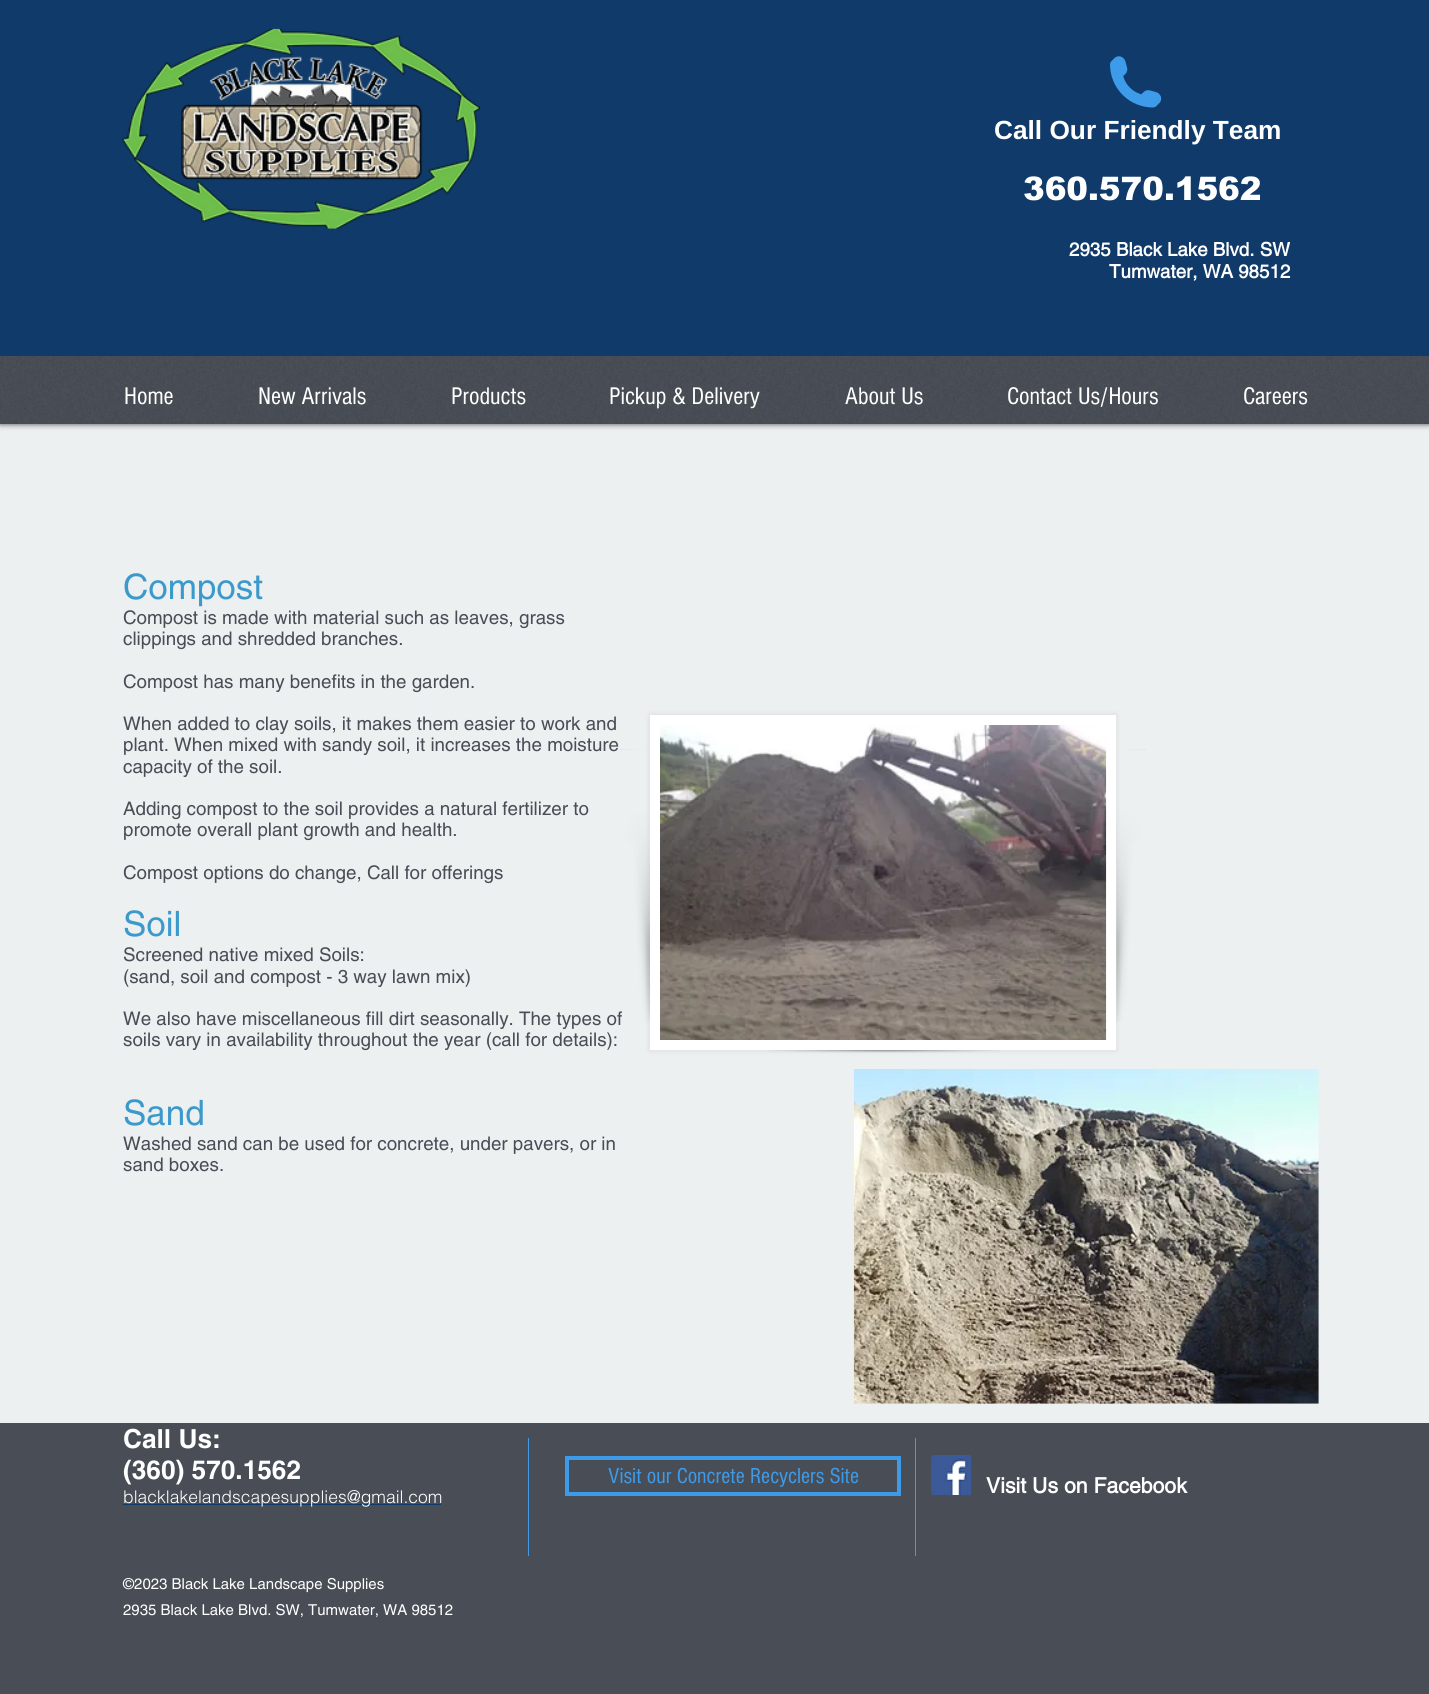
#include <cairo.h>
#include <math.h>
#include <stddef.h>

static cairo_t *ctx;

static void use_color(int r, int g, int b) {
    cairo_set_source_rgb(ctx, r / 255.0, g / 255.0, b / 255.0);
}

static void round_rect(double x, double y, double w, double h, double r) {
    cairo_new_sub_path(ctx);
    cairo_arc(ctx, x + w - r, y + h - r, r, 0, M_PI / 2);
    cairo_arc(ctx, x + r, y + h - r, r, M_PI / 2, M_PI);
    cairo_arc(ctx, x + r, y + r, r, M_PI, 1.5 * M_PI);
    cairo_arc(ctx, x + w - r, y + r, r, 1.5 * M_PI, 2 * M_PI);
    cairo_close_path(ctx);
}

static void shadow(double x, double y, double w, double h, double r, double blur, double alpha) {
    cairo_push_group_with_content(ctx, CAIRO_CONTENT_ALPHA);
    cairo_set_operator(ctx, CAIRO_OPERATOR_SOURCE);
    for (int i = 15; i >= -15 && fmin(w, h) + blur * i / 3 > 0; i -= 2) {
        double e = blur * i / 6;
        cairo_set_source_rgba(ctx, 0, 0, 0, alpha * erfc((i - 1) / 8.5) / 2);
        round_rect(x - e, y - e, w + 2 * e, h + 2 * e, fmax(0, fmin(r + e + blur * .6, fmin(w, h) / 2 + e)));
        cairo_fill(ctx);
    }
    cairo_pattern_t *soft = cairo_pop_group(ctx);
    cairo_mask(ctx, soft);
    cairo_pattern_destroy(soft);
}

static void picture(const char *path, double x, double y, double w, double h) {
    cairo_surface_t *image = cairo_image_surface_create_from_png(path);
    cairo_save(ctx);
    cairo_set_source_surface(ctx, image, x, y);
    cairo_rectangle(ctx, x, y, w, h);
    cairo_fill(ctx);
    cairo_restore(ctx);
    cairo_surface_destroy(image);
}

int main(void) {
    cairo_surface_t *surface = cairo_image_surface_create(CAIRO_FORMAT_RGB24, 1429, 1694);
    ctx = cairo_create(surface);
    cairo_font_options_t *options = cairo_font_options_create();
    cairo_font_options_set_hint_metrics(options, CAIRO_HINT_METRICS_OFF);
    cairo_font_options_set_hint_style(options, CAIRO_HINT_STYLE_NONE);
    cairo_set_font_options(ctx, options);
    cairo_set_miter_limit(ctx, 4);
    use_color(236, 240, 241);
    cairo_paint(ctx);
    use_color(0, 0, 0);
    shadow(0, 0, 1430, 424, 0, 3, 0.7);
    use_color(72, 77, 86);
    cairo_rectangle(ctx, 0, 356, 1429, 68);
    cairo_fill(ctx);
    picture("img1.png", 0, 356, 1429, 68);
    use_color(15, 58, 105);
    cairo_rectangle(ctx, 0, 0, 1429, 356);
    cairo_fill(ctx);
    picture("img2.png", 122, 28, 358, 201);
    picture("img3.png", 1110, 56, 52, 52);
    cairo_select_font_face(ctx, "Liberation Sans", CAIRO_FONT_SLANT_NORMAL, CAIRO_FONT_WEIGHT_BOLD);
    cairo_set_font_size(ctx, 26.25);
    use_color(255, 255, 255);
    cairo_move_to(ctx, 994, 139);
    cairo_show_text(ctx, "Call Our Friendly Team");
    cairo_select_font_face(ctx, "arial Black", CAIRO_FONT_SLANT_NORMAL, CAIRO_FONT_WEIGHT_NORMAL);
    cairo_set_font_size(ctx, 32.5);
    cairo_move_to(ctx, 1023, 200);
    cairo_show_text(ctx, "360.570.1562");
    cairo_select_font_face(ctx, "helvetica", CAIRO_FONT_SLANT_NORMAL, CAIRO_FONT_WEIGHT_BOLD);
    cairo_set_font_size(ctx, 18.75);
    cairo_move_to(ctx, 1069, 256);
    cairo_show_text(ctx, "2935 Black Lake Blvd. SW");
    cairo_move_to(ctx, 1109, 278);
    cairo_show_text(ctx, "Tumwater, WA 98512");
    cairo_select_font_face(ctx, "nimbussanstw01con", CAIRO_FONT_SLANT_NORMAL, CAIRO_FONT_WEIGHT_NORMAL);
    cairo_set_font_size(ctx, 25);
    cairo_move_to(ctx, 124, 404);
    cairo_show_text(ctx, "Home");
    cairo_move_to(ctx, 258, 404);
    cairo_show_text(ctx, "New Arrivals");
    cairo_move_to(ctx, 451, 404);
    cairo_show_text(ctx, "Products");
    cairo_move_to(ctx, 609, 404);
    cairo_show_text(ctx, "Pickup & Delivery");
    cairo_move_to(ctx, 845, 404);
    cairo_show_text(ctx, "About Us");
    cairo_move_to(ctx, 1007, 404);
    cairo_show_text(ctx, "Contact Us/Hours");
    cairo_move_to(ctx, 1243, 404);
    cairo_show_text(ctx, "Careers");
    cairo_select_font_face(ctx, "helvetica", CAIRO_FONT_SLANT_NORMAL, CAIRO_FONT_WEIGHT_NORMAL);
    cairo_set_font_size(ctx, 35);
    use_color(59, 153, 204);
    cairo_move_to(ctx, 123, 599);
    cairo_show_text(ctx, "Compost");
    cairo_set_font_size(ctx, 18.75);
    use_color(72, 77, 86);
    cairo_move_to(ctx, 123, 624);
    cairo_show_text(ctx, "Compost is made with material such as leaves, grass");
    cairo_move_to(ctx, 123, 645);
    cairo_show_text(ctx, "clippings and shredded branches.");
    cairo_move_to(ctx, 123, 688);
    cairo_show_text(ctx, "Compost has many benefits in the garden.");
    cairo_move_to(ctx, 123, 730);
    cairo_show_text(ctx, "When added to clay soils, it makes them easier to work and");
    cairo_move_to(ctx, 123, 751);
    cairo_show_text(ctx, "plant. When mixed with sandy soil, it increases the moisture");
    cairo_move_to(ctx, 123, 773);
    cairo_show_text(ctx, "capacity of the soil.");
    cairo_move_to(ctx, 123, 815);
    cairo_show_text(ctx, "Adding compost to the soil provides a natural fertilizer to");
    cairo_move_to(ctx, 123, 836);
    cairo_show_text(ctx, "promote overall plant growth and health.");
    cairo_move_to(ctx, 123, 879);
    cairo_show_text(ctx, "Compost options do change, Call for offerings");
    cairo_set_font_size(ctx, 35);
    use_color(59, 153, 204);
    cairo_move_to(ctx, 123, 936);
    cairo_show_text(ctx, "Soil");
    cairo_set_font_size(ctx, 18.75);
    use_color(72, 77, 86);
    cairo_move_to(ctx, 123, 961);
    cairo_show_text(ctx, "Screened native mixed Soils:");
    cairo_move_to(ctx, 123, 983);
    cairo_show_text(ctx, "(sand, soil and compost - 3 way lawn mix)");
    cairo_move_to(ctx, 123, 1025);
    cairo_show_text(ctx, "We also have miscellaneous fill dirt seasonally. The types of");
    cairo_move_to(ctx, 123, 1046);
    cairo_show_text(ctx, "soils vary in availability throughout the year (call for details):");
    cairo_set_font_size(ctx, 35);
    use_color(59, 153, 204);
    cairo_move_to(ctx, 123, 1125);
    cairo_show_text(ctx, "Sand");
    cairo_set_font_size(ctx, 18.75);
    use_color(72, 77, 86);
    cairo_move_to(ctx, 123, 1150);
    cairo_show_text(ctx, "Washed sand can be used for concrete, under pavers, or in");
    cairo_move_to(ctx, 123, 1171);
    cairo_show_text(ctx, "sand boxes.");
    use_color(0, 0, 0);
    shadow(650, 715, 466, 335, 0, 3, 0.1);
    picture("img4.png", 620, 749, 30, 274);
    use_color(255, 255, 255);
    cairo_rectangle(ctx, 650, 715, 466, 335);
    cairo_fill(ctx);
    picture("img5.png", 660, 725, 447, 315);
    picture("img6.png", 767, 1050, 234, 3);
    picture("img7.png", 1116, 749, 30, 273);
    picture("img8.png", 853, 1069, 466, 335);
    use_color(72, 77, 86);
    cairo_rectangle(ctx, 0, 1423, 1429, 271);
    cairo_fill(ctx);
    cairo_select_font_face(ctx, "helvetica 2", CAIRO_FONT_SLANT_NORMAL, CAIRO_FONT_WEIGHT_BOLD);
    cairo_set_font_size(ctx, 26.25);
    use_color(255, 255, 255);
    cairo_move_to(ctx, 123, 1448);
    cairo_show_text(ctx, "Call Us:");
    cairo_move_to(ctx, 123, 1479);
    cairo_show_text(ctx, "(360) 570.1562");
    use_color(15, 58, 105);
    cairo_rectangle(ctx, 123, 1504, 318, 1);
    cairo_fill(ctx);
    cairo_select_font_face(ctx, "helvetica Light", CAIRO_FONT_SLANT_NORMAL, CAIRO_FONT_WEIGHT_NORMAL);
    cairo_set_font_size(ctx, 17.5);
    use_color(255, 255, 255);
    cairo_move_to(ctx, 123, 1503);
    cairo_show_text(ctx, "blacklakelandscapesupplies@gmail.com");
    use_color(61, 155, 233);
    cairo_rectangle(ctx, 528, 1438, 1, 118);
    cairo_fill(ctx);
    cairo_rectangle(ctx, 567, 1458, 332, 36);
    cairo_set_line_width(ctx, 4);
    cairo_stroke(ctx);
    cairo_select_font_face(ctx, "nimbussanstw01con", CAIRO_FONT_SLANT_NORMAL, CAIRO_FONT_WEIGHT_NORMAL);
    cairo_set_font_size(ctx, 22.5);
    cairo_move_to(ctx, 608, 1483);
    cairo_show_text(ctx, "Visit our Concrete Recyclers Site");
    cairo_rectangle(ctx, 915, 1438, 1, 118);
    cairo_fill(ctx);
    picture("img9.png", 931, 1455, 41, 40);
    cairo_select_font_face(ctx, "helvetica", CAIRO_FONT_SLANT_NORMAL, CAIRO_FONT_WEIGHT_BOLD);
    cairo_set_font_size(ctx, 21.25);
    use_color(255, 255, 255);
    cairo_move_to(ctx, 986, 1493);
    cairo_show_text(ctx, "Visit Us on Facebook");
    cairo_select_font_face(ctx, "helvetica", CAIRO_FONT_SLANT_NORMAL, CAIRO_FONT_WEIGHT_NORMAL);
    cairo_set_font_size(ctx, 15);
    cairo_move_to(ctx, 123, 1589);
    cairo_show_text(ctx, "©2023 Black Lake Landscape Supplies");
    cairo_move_to(ctx, 123, 1615);
    cairo_show_text(ctx, "2935 Black Lake Blvd. SW, Tumwater, WA 98512");
    cairo_surface_write_to_png(surface, "result.png");
    cairo_font_options_destroy(options);
    cairo_destroy(ctx);
    cairo_surface_destroy(surface);
    return 0;
}
